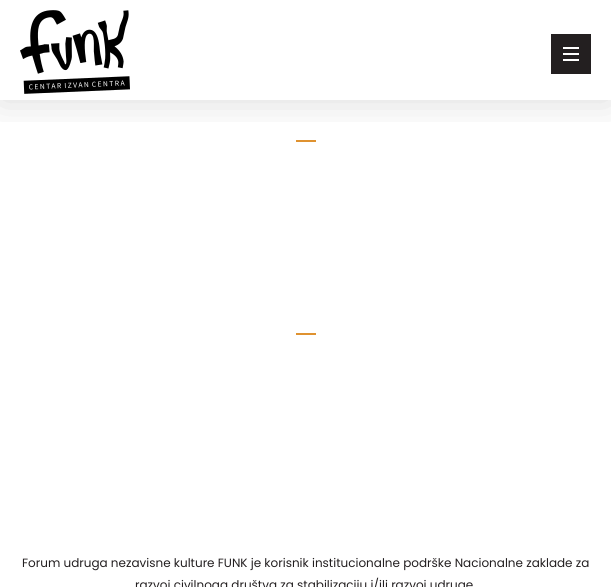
#include <cairo.h>
#include <math.h>
#include <stddef.h>

static cairo_t *ctx;

static void use_color(int r, int g, int b) {
    cairo_set_source_rgb(ctx, r / 255.0, g / 255.0, b / 255.0);
}

static void round_rect(double x, double y, double w, double h, double r) {
    cairo_new_sub_path(ctx);
    cairo_arc(ctx, x + w - r, y + h - r, r, 0, M_PI / 2);
    cairo_arc(ctx, x + r, y + h - r, r, M_PI / 2, M_PI);
    cairo_arc(ctx, x + r, y + r, r, M_PI, 1.5 * M_PI);
    cairo_arc(ctx, x + w - r, y + r, r, 1.5 * M_PI, 2 * M_PI);
    cairo_close_path(ctx);
}

static void shadow(double x, double y, double w, double h, double r, double blur, double alpha) {
    cairo_push_group_with_content(ctx, CAIRO_CONTENT_ALPHA);
    cairo_set_operator(ctx, CAIRO_OPERATOR_SOURCE);
    for (int i = 15; i >= -15 && fmin(w, h) + blur * i / 3 > 0; i -= 2) {
        double e = blur * i / 6;
        cairo_set_source_rgba(ctx, 0, 0, 0, alpha * erfc((i - 1) / 8.5) / 2);
        round_rect(x - e, y - e, w + 2 * e, h + 2 * e, fmax(0, fmin(r + e + blur * .6, fmin(w, h) / 2 + e)));
        cairo_fill(ctx);
    }
    cairo_pattern_t *soft = cairo_pop_group(ctx);
    cairo_mask(ctx, soft);
    cairo_pattern_destroy(soft);
}

static void picture(const char *path, double x, double y, double w, double h) {
    cairo_surface_t *image = cairo_image_surface_create_from_png(path);
    cairo_save(ctx);
    cairo_set_source_surface(ctx, image, x, y);
    cairo_rectangle(ctx, x, y, w, h);
    cairo_fill(ctx);
    cairo_restore(ctx);
    cairo_surface_destroy(image);
}

int main(void) {
    cairo_surface_t *surface = cairo_image_surface_create(CAIRO_FORMAT_RGB24, 611, 587);
    ctx = cairo_create(surface);
    cairo_font_options_t *options = cairo_font_options_create();
    cairo_font_options_set_hint_metrics(options, CAIRO_HINT_METRICS_OFF);
    cairo_font_options_set_hint_style(options, CAIRO_HINT_STYLE_NONE);
    cairo_set_font_options(ctx, options);
    cairo_set_miter_limit(ctx, 4);
    use_color(255, 255, 255);
    cairo_paint(ctx);
    use_color(223, 146, 48);
    cairo_rectangle(ctx, 296, 140, 20, 2);
    cairo_fill(ctx);
    cairo_save(ctx);
    cairo_rectangle(ctx, 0, 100, 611, 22);
    cairo_clip(ctx);
    use_color(0, 0, 0);
    shadow(0, 0, 611, 100, 0, 20, 0.15);
    cairo_restore(ctx);
    picture("img1.png", 20, 10, 110, 84);
    use_color(35, 31, 32);
    cairo_rectangle(ctx, 551, 34, 40, 40);
    cairo_fill(ctx);
    use_color(255, 255, 255);
    cairo_rectangle(ctx, 563, 53, 16, 2);
    cairo_fill(ctx);
    cairo_rectangle(ctx, 563, 47, 16, 2);
    cairo_fill(ctx);
    cairo_rectangle(ctx, 563, 59, 16, 2);
    cairo_fill(ctx);
    use_color(223, 146, 48);
    cairo_rectangle(ctx, 296, 333, 20, 2);
    cairo_fill(ctx);
    cairo_select_font_face(ctx, "Poppins", CAIRO_FONT_SLANT_NORMAL, CAIRO_FONT_WEIGHT_NORMAL);
    cairo_set_font_size(ctx, 12);
    use_color(35, 31, 32);
    cairo_move_to(ctx, 22, 567);
    cairo_show_text(ctx, "Forum udruga nezavisne kulture FUNK je korisnik institucionalne podrške Nacionalne zaklade za");
    cairo_move_to(ctx, 135, 589);
    cairo_show_text(ctx, "razvoj civilnoga društva za stabilizaciju i/ili razvoj udruge");
    cairo_surface_write_to_png(surface, "result.png");
    cairo_font_options_destroy(options);
    cairo_destroy(ctx);
    cairo_surface_destroy(surface);
    return 0;
}
